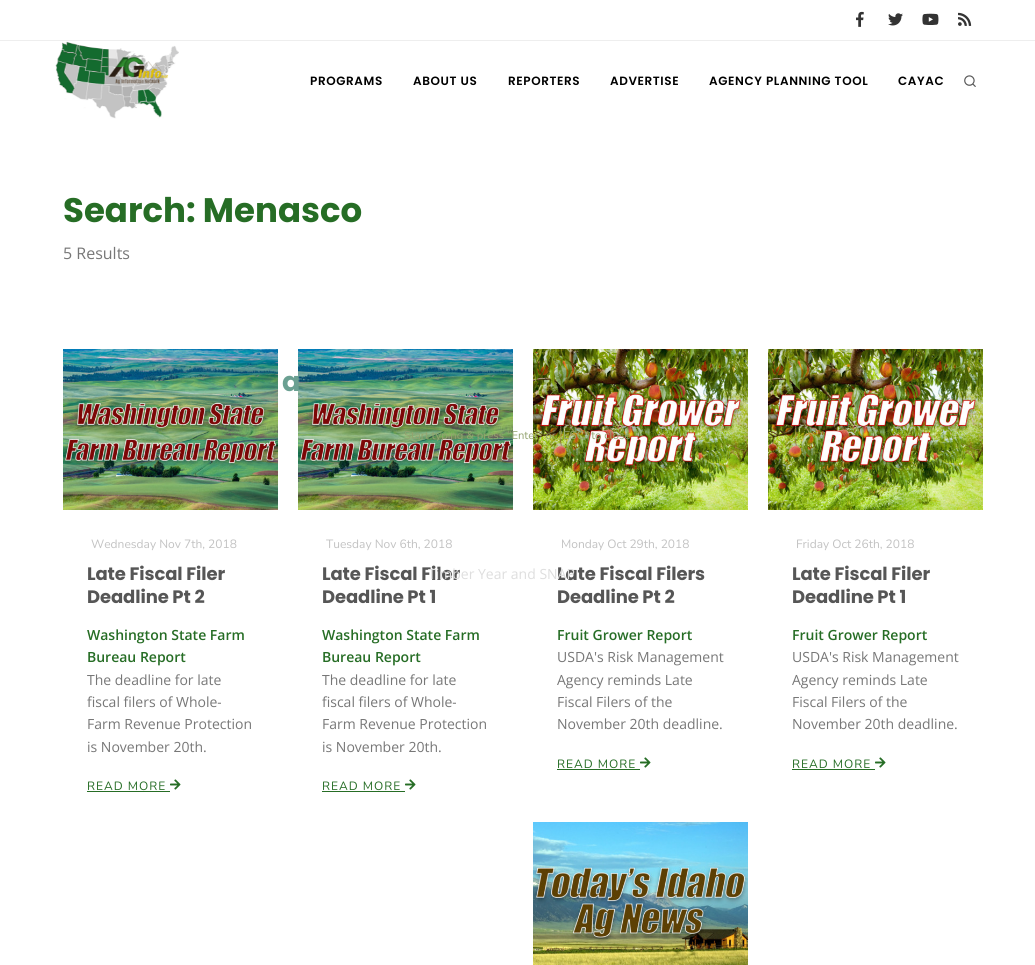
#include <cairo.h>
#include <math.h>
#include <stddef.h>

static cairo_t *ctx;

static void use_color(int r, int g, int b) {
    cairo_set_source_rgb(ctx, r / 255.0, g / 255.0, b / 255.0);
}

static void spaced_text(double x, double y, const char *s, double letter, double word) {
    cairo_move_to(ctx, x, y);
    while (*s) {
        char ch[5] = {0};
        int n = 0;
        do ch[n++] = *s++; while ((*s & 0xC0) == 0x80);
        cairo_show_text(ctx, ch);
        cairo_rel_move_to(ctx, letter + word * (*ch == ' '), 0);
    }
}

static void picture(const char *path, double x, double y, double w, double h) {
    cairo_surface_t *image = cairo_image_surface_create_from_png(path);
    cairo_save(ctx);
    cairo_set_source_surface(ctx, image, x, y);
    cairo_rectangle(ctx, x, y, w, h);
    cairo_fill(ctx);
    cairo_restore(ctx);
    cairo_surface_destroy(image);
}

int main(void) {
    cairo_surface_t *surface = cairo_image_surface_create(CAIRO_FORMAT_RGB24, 1035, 965);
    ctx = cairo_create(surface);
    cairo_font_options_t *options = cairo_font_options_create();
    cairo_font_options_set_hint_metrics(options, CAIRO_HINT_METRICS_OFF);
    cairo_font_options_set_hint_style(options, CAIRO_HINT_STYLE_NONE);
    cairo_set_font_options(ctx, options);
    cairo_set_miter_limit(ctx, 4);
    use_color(255, 255, 255);
    cairo_paint(ctx);
    use_color(238, 238, 238);
    cairo_rectangle(ctx, 0, 40, 1035, 1);
    cairo_fill(ctx);
    picture("img1.png", 856, 11, 8, 16);
    picture("img2.png", 888, 13, 15, 13);
    picture("img3.png", 922, 13, 17, 12);
    picture("img4.png", 958, 12, 14, 14);
    picture("img5.png", 55, 41, 124, 78);
    cairo_select_font_face(ctx, "Poppins SemiBold", CAIRO_FONT_SLANT_NORMAL, CAIRO_FONT_WEIGHT_NORMAL);
    cairo_set_font_size(ctx, 12);
    use_color(0, 0, 0);
    spaced_text(310, 85, "PROGRAMS", 0.6, 0);
    spaced_text(413, 85, "ABOUT US", 0.6, 0);
    spaced_text(508, 85, "REPORTERS", 0.6, 0);
    spaced_text(610, 85, "ADVERTISE", 0.6, 0);
    spaced_text(709, 85, "AGENCY PLANNING TOOL", 0.6, 0);
    spaced_text(898, 85, "CAYAC", 0.6, 0);
    picture("img6.png", 964, 75, 12, 12);
    picture("img9.png", 298, 349, 215, 161);
    cairo_select_font_face(ctx, "Poppins", CAIRO_FONT_SLANT_NORMAL, CAIRO_FONT_WEIGHT_BOLD);
    cairo_set_font_size(ctx, 27);
    use_color(107, 160, 146);
    cairo_move_to(ctx, 282, 391);
    cairo_show_text(ctx, "a");
    picture("img10.png", 533, 349, 215, 161);
    cairo_select_font_face(ctx, "Nunito", CAIRO_FONT_SLANT_NORMAL, CAIRO_FONT_WEIGHT_NORMAL);
    cairo_set_font_size(ctx, 11.2);
    use_color(147, 163, 111);
    cairo_move_to(ctx, 404, 439);
    cairo_show_text(ctx, "Start typing & press \"Enter\" or \"ESC\" to close");
    cairo_select_font_face(ctx, "Poppins", CAIRO_FONT_SLANT_NORMAL, CAIRO_FONT_WEIGHT_BOLD);
    cairo_set_font_size(ctx, 18);
    use_color(86, 86, 86);
    spaced_text(322, 580, "Late Fiscal Filer", -0.1, 0);
    spaced_text(557, 580, "Late Fiscal Filers", -0.1, 0);
    cairo_select_font_face(ctx, "Open Sans", CAIRO_FONT_SLANT_NORMAL, CAIRO_FONT_WEIGHT_NORMAL);
    cairo_set_font_size(ctx, 14);
    use_color(222, 222, 222);
    cairo_move_to(ctx, 428, 579);
    cairo_show_text(ctx, "Timber Year and SNAP");
    cairo_select_font_face(ctx, "Poppins", CAIRO_FONT_SLANT_NORMAL, CAIRO_FONT_WEIGHT_BOLD);
    cairo_set_font_size(ctx, 34);
    use_color(38, 109, 37);
    cairo_move_to(ctx, 63, 222);
    cairo_show_text(ctx, "Search: Menasco");
    cairo_select_font_face(ctx, "Open Sans", CAIRO_FONT_SLANT_NORMAL, CAIRO_FONT_WEIGHT_NORMAL);
    cairo_set_font_size(ctx, 16);
    use_color(119, 119, 119);
    cairo_move_to(ctx, 63, 259);
    cairo_show_text(ctx, "5 Results");
    picture("img7.png", 63, 349, 215, 161);
    cairo_select_font_face(ctx, "Nunito", CAIRO_FONT_SLANT_NORMAL, CAIRO_FONT_WEIGHT_NORMAL);
    cairo_set_font_size(ctx, 12);
    use_color(194, 194, 194);
    cairo_move_to(ctx, 91, 548);
    cairo_show_text(ctx, "Wednesday Nov 7th, 2018");
    cairo_select_font_face(ctx, "Poppins", CAIRO_FONT_SLANT_NORMAL, CAIRO_FONT_WEIGHT_BOLD);
    cairo_set_font_size(ctx, 18);
    use_color(86, 86, 86);
    spaced_text(87, 580, "Late Fiscal Filer", -0.1, 0);
    spaced_text(87, 603, "Deadline Pt 2", -0.1, 0);
    cairo_select_font_face(ctx, "Open Sans SemiBold", CAIRO_FONT_SLANT_NORMAL, CAIRO_FONT_WEIGHT_NORMAL);
    cairo_set_font_size(ctx, 14);
    use_color(38, 109, 37);
    cairo_move_to(ctx, 87, 640);
    cairo_show_text(ctx, "Washington State Farm");
    cairo_move_to(ctx, 87, 662);
    cairo_show_text(ctx, "Bureau Report");
    cairo_select_font_face(ctx, "Open Sans", CAIRO_FONT_SLANT_NORMAL, CAIRO_FONT_WEIGHT_NORMAL);
    use_color(119, 119, 119);
    cairo_move_to(ctx, 87, 685);
    cairo_show_text(ctx, "The deadline for late");
    cairo_move_to(ctx, 87, 707);
    cairo_show_text(ctx, "fiscal filers of Whole-");
    cairo_move_to(ctx, 87, 729);
    cairo_show_text(ctx, "Farm Revenue Protection");
    cairo_move_to(ctx, 87, 752);
    cairo_show_text(ctx, "is November 20th.");
    cairo_select_font_face(ctx, "Nunito", CAIRO_FONT_SLANT_NORMAL, CAIRO_FONT_WEIGHT_NORMAL);
    cairo_set_font_size(ctx, 12);
    use_color(38, 109, 37);
    spaced_text(87, 790, "READ MORE", 1, 0);
    cairo_rectangle(ctx, 87, 791, 83, 1);
    cairo_fill(ctx);
    picture("img8.png", 170, 779, 11, 11);
    use_color(194, 194, 194);
    cairo_move_to(ctx, 326, 548);
    cairo_show_text(ctx, "Tuesday Nov 6th, 2018");
    cairo_select_font_face(ctx, "Poppins", CAIRO_FONT_SLANT_NORMAL, CAIRO_FONT_WEIGHT_BOLD);
    cairo_set_font_size(ctx, 18);
    use_color(86, 86, 86);
    spaced_text(322, 603, "Deadline Pt 1", -0.1, 0);
    cairo_select_font_face(ctx, "Open Sans SemiBold", CAIRO_FONT_SLANT_NORMAL, CAIRO_FONT_WEIGHT_NORMAL);
    cairo_set_font_size(ctx, 14);
    use_color(38, 109, 37);
    cairo_move_to(ctx, 322, 640);
    cairo_show_text(ctx, "Washington State Farm");
    cairo_move_to(ctx, 322, 662);
    cairo_show_text(ctx, "Bureau Report");
    cairo_select_font_face(ctx, "Open Sans", CAIRO_FONT_SLANT_NORMAL, CAIRO_FONT_WEIGHT_NORMAL);
    use_color(119, 119, 119);
    cairo_move_to(ctx, 322, 685);
    cairo_show_text(ctx, "The deadline for late");
    cairo_move_to(ctx, 322, 707);
    cairo_show_text(ctx, "fiscal filers of Whole-");
    cairo_move_to(ctx, 322, 729);
    cairo_show_text(ctx, "Farm Revenue Protection");
    cairo_move_to(ctx, 322, 752);
    cairo_show_text(ctx, "is November 20th.");
    cairo_select_font_face(ctx, "Nunito", CAIRO_FONT_SLANT_NORMAL, CAIRO_FONT_WEIGHT_NORMAL);
    cairo_set_font_size(ctx, 12);
    use_color(38, 109, 37);
    spaced_text(322, 790, "READ MORE", 1, 0);
    cairo_rectangle(ctx, 322, 791, 83, 1);
    cairo_fill(ctx);
    picture("img8.png", 405, 779, 11, 11);
    use_color(194, 194, 194);
    cairo_move_to(ctx, 561, 548);
    cairo_show_text(ctx, "Monday Oct 29th, 2018");
    cairo_select_font_face(ctx, "Poppins", CAIRO_FONT_SLANT_NORMAL, CAIRO_FONT_WEIGHT_BOLD);
    cairo_set_font_size(ctx, 18);
    use_color(86, 86, 86);
    spaced_text(557, 603, "Deadline Pt 2", -0.1, 0);
    cairo_select_font_face(ctx, "Open Sans SemiBold", CAIRO_FONT_SLANT_NORMAL, CAIRO_FONT_WEIGHT_NORMAL);
    cairo_set_font_size(ctx, 14);
    use_color(38, 109, 37);
    cairo_move_to(ctx, 557, 640);
    cairo_show_text(ctx, "Fruit Grower Report");
    cairo_select_font_face(ctx, "Open Sans", CAIRO_FONT_SLANT_NORMAL, CAIRO_FONT_WEIGHT_NORMAL);
    use_color(119, 119, 119);
    cairo_move_to(ctx, 557, 662);
    cairo_show_text(ctx, "USDA's Risk Management");
    cairo_move_to(ctx, 557, 685);
    cairo_show_text(ctx, "Agency reminds Late");
    cairo_move_to(ctx, 557, 707);
    cairo_show_text(ctx, "Fiscal Filers of the");
    cairo_move_to(ctx, 557, 729);
    cairo_show_text(ctx, "November 20th deadline.");
    cairo_select_font_face(ctx, "Nunito", CAIRO_FONT_SLANT_NORMAL, CAIRO_FONT_WEIGHT_NORMAL);
    cairo_set_font_size(ctx, 12);
    use_color(38, 109, 37);
    spaced_text(557, 768, "READ MORE", 1, 0);
    cairo_rectangle(ctx, 557, 769, 83, 1);
    cairo_fill(ctx);
    picture("img8.png", 640, 757, 11, 11);
    picture("img10.png", 768, 349, 215, 161);
    use_color(194, 194, 194);
    cairo_move_to(ctx, 796, 548);
    cairo_show_text(ctx, "Friday Oct 26th, 2018");
    cairo_select_font_face(ctx, "Poppins", CAIRO_FONT_SLANT_NORMAL, CAIRO_FONT_WEIGHT_BOLD);
    cairo_set_font_size(ctx, 18);
    use_color(86, 86, 86);
    spaced_text(792, 580, "Late Fiscal Filer", -0.1, 0);
    spaced_text(792, 603, "Deadline Pt 1", -0.1, 0);
    cairo_select_font_face(ctx, "Open Sans SemiBold", CAIRO_FONT_SLANT_NORMAL, CAIRO_FONT_WEIGHT_NORMAL);
    cairo_set_font_size(ctx, 14);
    use_color(38, 109, 37);
    cairo_move_to(ctx, 792, 640);
    cairo_show_text(ctx, "Fruit Grower Report");
    cairo_select_font_face(ctx, "Open Sans", CAIRO_FONT_SLANT_NORMAL, CAIRO_FONT_WEIGHT_NORMAL);
    use_color(119, 119, 119);
    cairo_move_to(ctx, 792, 662);
    cairo_show_text(ctx, "USDA's Risk Management");
    cairo_move_to(ctx, 792, 685);
    cairo_show_text(ctx, "Agency reminds Late");
    cairo_move_to(ctx, 792, 707);
    cairo_show_text(ctx, "Fiscal Filers of the");
    cairo_move_to(ctx, 792, 729);
    cairo_show_text(ctx, "November 20th deadline.");
    cairo_select_font_face(ctx, "Nunito", CAIRO_FONT_SLANT_NORMAL, CAIRO_FONT_WEIGHT_NORMAL);
    cairo_set_font_size(ctx, 12);
    use_color(38, 109, 37);
    spaced_text(792, 768, "READ MORE", 1, 0);
    cairo_rectangle(ctx, 792, 769, 83, 1);
    cairo_fill(ctx);
    picture("img8.png", 875, 757, 11, 11);
    picture("img11.png", 533, 822, 215, 143);
    cairo_surface_write_to_png(surface, "result.png");
    cairo_font_options_destroy(options);
    cairo_destroy(ctx);
    cairo_surface_destroy(surface);
    return 0;
}
